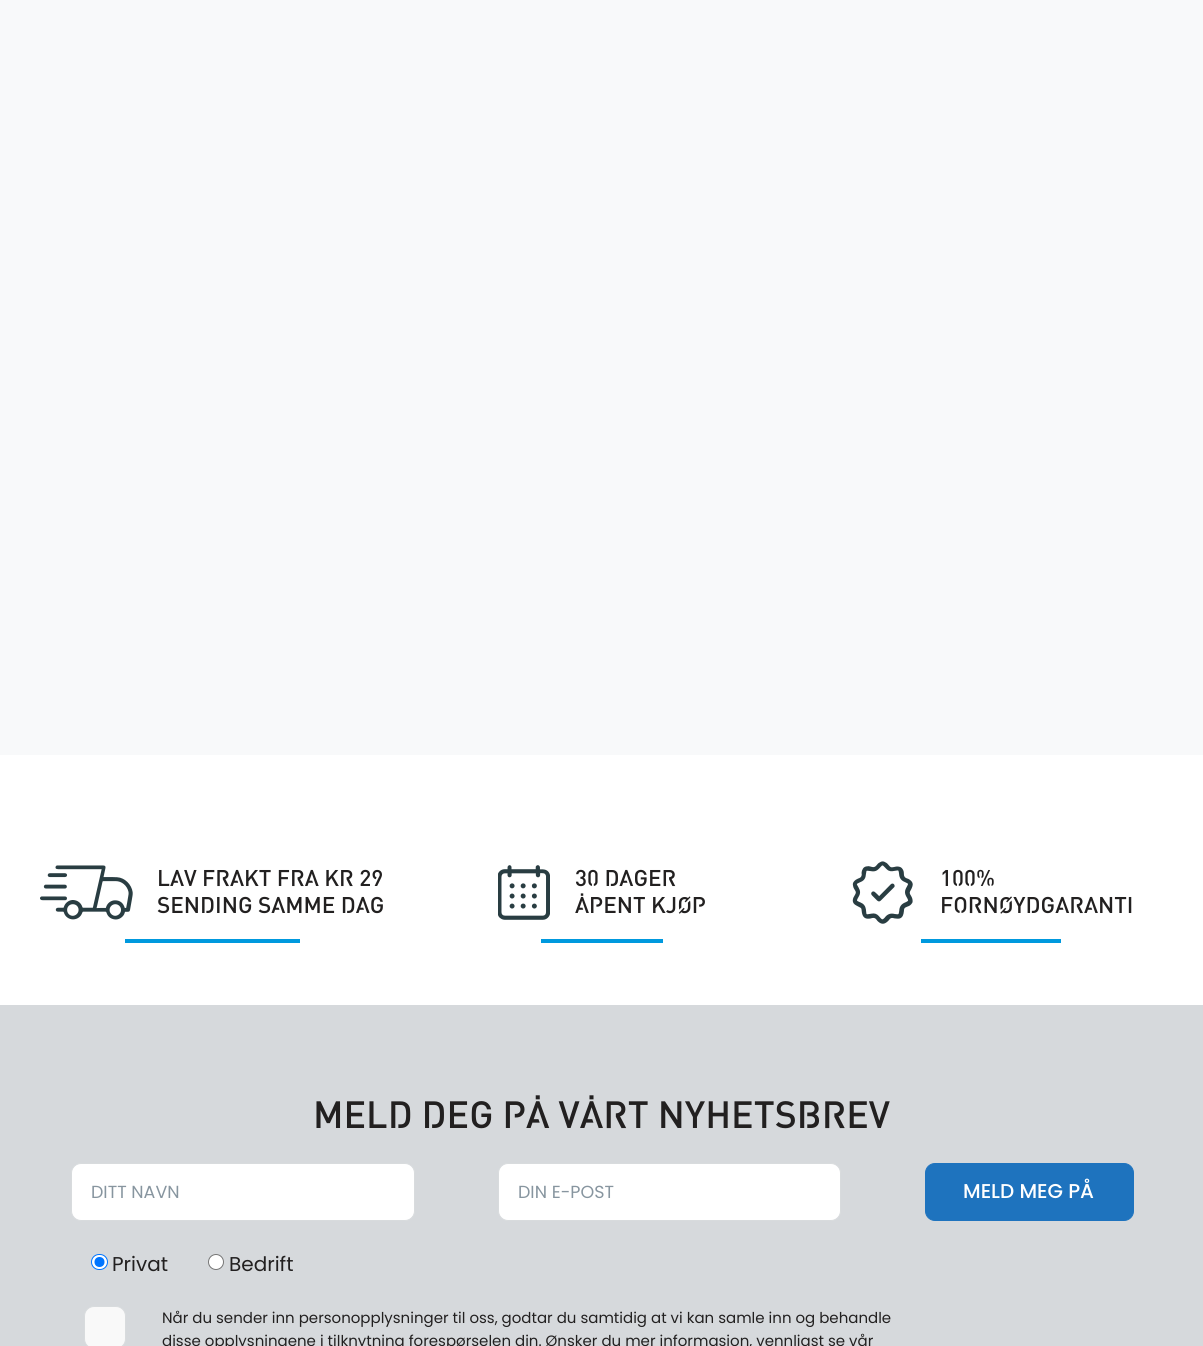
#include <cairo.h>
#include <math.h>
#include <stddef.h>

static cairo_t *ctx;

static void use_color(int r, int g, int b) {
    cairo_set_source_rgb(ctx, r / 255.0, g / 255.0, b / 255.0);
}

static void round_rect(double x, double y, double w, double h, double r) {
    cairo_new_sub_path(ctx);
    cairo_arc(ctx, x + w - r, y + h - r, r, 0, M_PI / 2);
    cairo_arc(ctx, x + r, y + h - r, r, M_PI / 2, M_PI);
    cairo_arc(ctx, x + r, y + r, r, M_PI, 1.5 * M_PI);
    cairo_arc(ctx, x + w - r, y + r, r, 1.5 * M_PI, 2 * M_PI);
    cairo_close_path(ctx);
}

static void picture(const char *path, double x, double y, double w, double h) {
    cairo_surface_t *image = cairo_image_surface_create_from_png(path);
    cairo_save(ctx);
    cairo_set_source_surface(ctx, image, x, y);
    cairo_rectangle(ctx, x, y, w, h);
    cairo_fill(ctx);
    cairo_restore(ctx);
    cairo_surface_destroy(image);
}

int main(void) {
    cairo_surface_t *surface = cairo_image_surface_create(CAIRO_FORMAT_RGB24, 1203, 1346);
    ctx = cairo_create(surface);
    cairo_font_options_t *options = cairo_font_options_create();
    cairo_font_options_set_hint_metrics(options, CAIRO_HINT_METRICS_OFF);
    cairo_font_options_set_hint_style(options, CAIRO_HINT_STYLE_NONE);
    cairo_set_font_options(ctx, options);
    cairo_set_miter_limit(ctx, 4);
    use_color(255, 255, 255);
    cairo_paint(ctx);
    use_color(248, 249, 250);
    cairo_rectangle(ctx, 0, 0, 1203, 755);
    cairo_fill(ctx);
    picture("img1.png", 40, 865, 93, 55);
    cairo_select_font_face(ctx, "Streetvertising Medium", CAIRO_FONT_SLANT_NORMAL, CAIRO_FONT_WEIGHT_NORMAL);
    cairo_set_font_size(ctx, 22.5);
    use_color(34, 32, 32);
    cairo_move_to(ctx, 157, 886);
    cairo_show_text(ctx, "LAV FRAKT FRA KR 29");
    cairo_move_to(ctx, 157, 913);
    cairo_show_text(ctx, "SENDING SAMME DAG");
    use_color(0, 153, 222);
    cairo_rectangle(ctx, 125, 939, 175, 4);
    cairo_fill(ctx);
    picture("img2.png", 498, 865, 52, 55);
    use_color(34, 32, 32);
    cairo_move_to(ctx, 575, 886);
    cairo_show_text(ctx, "30 DAGER");
    cairo_move_to(ctx, 575, 913);
    cairo_show_text(ctx, "ÅPENT KJØP");
    use_color(0, 153, 222);
    cairo_rectangle(ctx, 541, 939, 122, 4);
    cairo_fill(ctx);
    picture("img3.png", 852, 861, 61, 63);
    use_color(34, 32, 32);
    cairo_move_to(ctx, 940, 886);
    cairo_show_text(ctx, "100%");
    cairo_move_to(ctx, 940, 913);
    cairo_show_text(ctx, "FORNØYDGARANTI");
    use_color(0, 153, 222);
    cairo_rectangle(ctx, 921, 939, 140, 4);
    cairo_fill(ctx);
    use_color(214, 217, 220);
    cairo_rectangle(ctx, 0, 1005, 1203, 341);
    cairo_fill(ctx);
    cairo_set_font_size(ctx, 37.5);
    use_color(34, 32, 32);
    cairo_move_to(ctx, 313, 1128);
    cairo_show_text(ctx, "MELD DEG PÅ VÅRT NYHETSBREV");
    use_color(255, 255, 255);
    round_rect(71.5, 1163.5, 343, 57, 9.5);
    cairo_fill_preserve(ctx);
    use_color(216, 219, 221);
    cairo_set_line_width(ctx, 1);
    cairo_stroke(ctx);
    cairo_select_font_face(ctx, "Poppins", CAIRO_FONT_SLANT_NORMAL, CAIRO_FONT_WEIGHT_NORMAL);
    cairo_set_font_size(ctx, 17.5);
    use_color(135, 149, 159);
    cairo_move_to(ctx, 91, 1198);
    cairo_show_text(ctx, "DITT NAVN");
    use_color(255, 255, 255);
    round_rect(498.5, 1163.5, 342, 57, 9.5);
    cairo_fill_preserve(ctx);
    use_color(216, 219, 221);
    cairo_stroke(ctx);
    use_color(135, 149, 159);
    cairo_move_to(ctx, 518, 1198);
    cairo_show_text(ctx, "DIN E-POST");
    use_color(255, 255, 255);
    round_rect(91.5, 1254.5, 16, 15, 7.5);
    cairo_fill_preserve(ctx);
    use_color(0, 117, 255);
    cairo_stroke(ctx);
    cairo_arc(ctx, 99.5, 1262, 5, 0, 2 * M_PI);
    cairo_fill(ctx);
    cairo_set_font_size(ctx, 20);
    use_color(34, 32, 32);
    cairo_move_to(ctx, 112, 1271);
    cairo_show_text(ctx, "Privat");
    use_color(255, 255, 255);
    cairo_new_path(ctx);
    cairo_arc(ctx, 216, 1262, 7.5, 0, 2 * M_PI);
    cairo_fill_preserve(ctx);
    use_color(118, 118, 118);
    cairo_stroke(ctx);
    use_color(34, 32, 32);
    cairo_move_to(ctx, 229, 1271);
    cairo_show_text(ctx, "Bedrift");
    use_color(249, 249, 249);
    round_rect(84.5, 1306.5, 41, 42, 9.5);
    cairo_fill_preserve(ctx);
    use_color(216, 219, 221);
    cairo_stroke(ctx);
    cairo_set_font_size(ctx, 15);
    use_color(34, 32, 32);
    cairo_move_to(ctx, 162, 1323);
    cairo_show_text(ctx, "Når du sender inn personopplysninger til oss, godtar du samtidig at vi kan samle inn og behandle");
    cairo_move_to(ctx, 162, 1346);
    cairo_show_text(ctx, "disse opplysningene i tilknytning forespørselen din. Ønsker du mer informasjon, vennligst se vår");
    use_color(30, 115, 190);
    round_rect(925.5, 1163.5, 208, 57, 9.5);
    cairo_fill_preserve(ctx);
    cairo_stroke(ctx);
    cairo_select_font_face(ctx, "Poppins Medium", CAIRO_FONT_SLANT_NORMAL, CAIRO_FONT_WEIGHT_NORMAL);
    cairo_set_font_size(ctx, 20);
    use_color(255, 255, 255);
    cairo_move_to(ctx, 963, 1198);
    cairo_show_text(ctx, "MELD MEG PÅ");
    cairo_surface_write_to_png(surface, "result.png");
    cairo_font_options_destroy(options);
    cairo_destroy(ctx);
    cairo_surface_destroy(surface);
    return 0;
}
